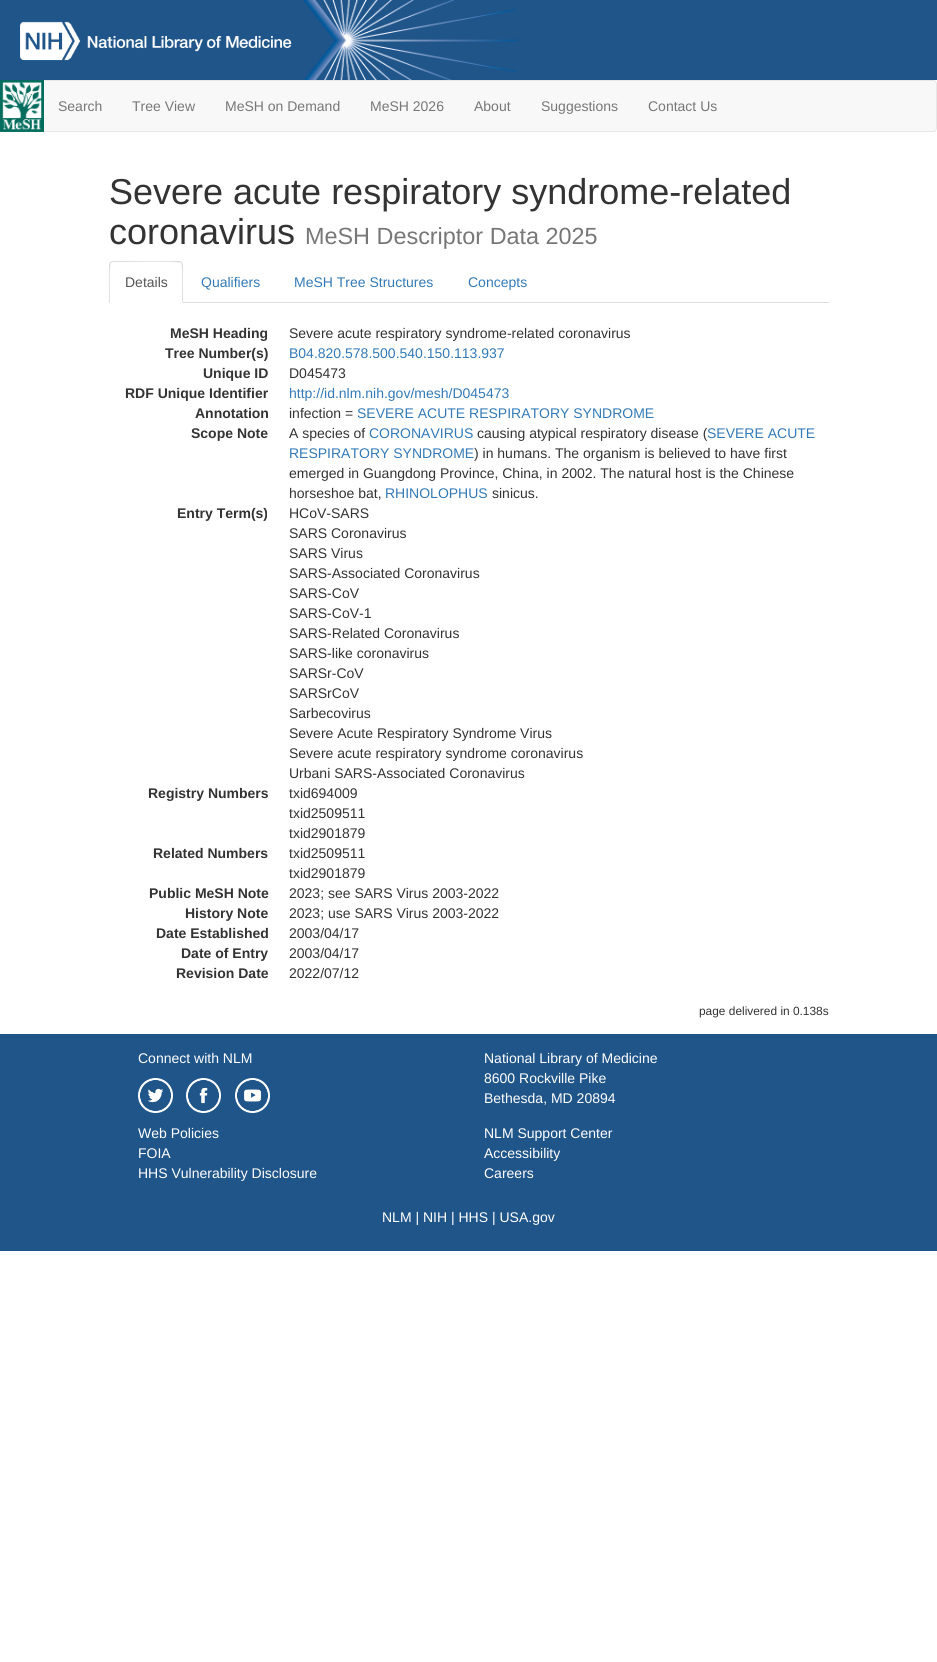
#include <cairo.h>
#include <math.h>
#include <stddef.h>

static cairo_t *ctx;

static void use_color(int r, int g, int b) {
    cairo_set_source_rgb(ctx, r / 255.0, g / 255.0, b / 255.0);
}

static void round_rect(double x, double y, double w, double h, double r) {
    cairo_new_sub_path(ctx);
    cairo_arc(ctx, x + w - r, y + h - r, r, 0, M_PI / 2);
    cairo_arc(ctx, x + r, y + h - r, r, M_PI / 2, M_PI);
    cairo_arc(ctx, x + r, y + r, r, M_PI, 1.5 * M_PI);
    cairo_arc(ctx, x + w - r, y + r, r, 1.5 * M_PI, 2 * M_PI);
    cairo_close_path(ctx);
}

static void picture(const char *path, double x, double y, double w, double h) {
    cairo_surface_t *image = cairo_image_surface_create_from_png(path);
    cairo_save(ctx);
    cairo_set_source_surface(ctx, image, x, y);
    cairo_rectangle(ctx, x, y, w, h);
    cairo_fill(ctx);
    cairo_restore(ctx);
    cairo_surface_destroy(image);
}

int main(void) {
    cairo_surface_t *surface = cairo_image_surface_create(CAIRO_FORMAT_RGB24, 937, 1662);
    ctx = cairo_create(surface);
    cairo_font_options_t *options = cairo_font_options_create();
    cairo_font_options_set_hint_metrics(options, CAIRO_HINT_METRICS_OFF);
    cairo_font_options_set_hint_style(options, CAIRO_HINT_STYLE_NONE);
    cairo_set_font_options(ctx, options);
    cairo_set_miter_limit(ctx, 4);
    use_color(255, 255, 255);
    cairo_paint(ctx);
    use_color(32, 85, 138);
    cairo_rectangle(ctx, 0, 0, 937, 80);
    cairo_fill(ctx);
    picture("img1.png", 303, 0, 216, 80);
    picture("img2.png", 20, 21, 272, 40);
    use_color(248, 248, 248);
    round_rect(0.5, 80.5, 936, 51, 3.5);
    cairo_fill_preserve(ctx);
    use_color(231, 231, 231);
    cairo_set_line_width(ctx, 1);
    cairo_stroke(ctx);
    picture("img3.png", 0, 80, 44, 52);
    cairo_select_font_face(ctx, "Liberation Sans", CAIRO_FONT_SLANT_NORMAL, CAIRO_FONT_WEIGHT_NORMAL);
    cairo_set_font_size(ctx, 14);
    use_color(119, 119, 119);
    cairo_move_to(ctx, 58, 111);
    cairo_show_text(ctx, "Search");
    cairo_move_to(ctx, 132, 111);
    cairo_show_text(ctx, "Tree View");
    cairo_move_to(ctx, 225, 111);
    cairo_show_text(ctx, "MeSH on Demand");
    cairo_move_to(ctx, 370, 111);
    cairo_show_text(ctx, "MeSH 2026");
    cairo_move_to(ctx, 474, 111);
    cairo_show_text(ctx, "About");
    cairo_move_to(ctx, 541, 111);
    cairo_show_text(ctx, "Suggestions");
    cairo_move_to(ctx, 648, 111);
    cairo_show_text(ctx, "Contact Us");
    cairo_set_font_size(ctx, 36);
    use_color(51, 51, 51);
    cairo_move_to(ctx, 109, 204);
    cairo_show_text(ctx, "Severe acute respiratory syndrome-related");
    cairo_move_to(ctx, 109, 244);
    cairo_show_text(ctx, "coronavirus");
    cairo_set_font_size(ctx, 23.4);
    use_color(119, 119, 119);
    cairo_move_to(ctx, 305, 244);
    cairo_show_text(ctx, "MeSH Descriptor Data 2025");
    use_color(221, 221, 221);
    cairo_rectangle(ctx, 183, 302, 646, 1);
    cairo_fill(ctx);
    cairo_new_path(ctx);
    cairo_move_to(ctx, 113, 261);
    cairo_line_to(ctx, 110, 262);
    cairo_line_to(ctx, 111, 263);
    cairo_line_to(ctx, 113, 262);
    cairo_line_to(ctx, 124, 262);
    cairo_curve_to(ctx, 130, 262, 179, 261, 181, 263);
    cairo_line_to(ctx, 182, 262);
    cairo_line_to(ctx, 179, 261);
    cairo_close_path(ctx);
    cairo_fill(ctx);
    cairo_new_path(ctx);
    cairo_move_to(ctx, 183, 303);
    cairo_line_to(ctx, 183, 265);
    cairo_curve_to(ctx, 183, 264, 182, 263, 182, 262);
    cairo_line_to(ctx, 181, 263);
    cairo_curve_to(ctx, 183, 265, 182, 297, 182, 302);
    cairo_close_path(ctx);
    cairo_fill(ctx);
    cairo_new_path(ctx);
    cairo_move_to(ctx, 109, 303);
    cairo_line_to(ctx, 110, 302);
    cairo_curve_to(ctx, 110, 297, 109, 265, 111, 263);
    cairo_line_to(ctx, 110, 262);
    cairo_line_to(ctx, 109, 265);
    cairo_close_path(ctx);
    cairo_fill(ctx);
    cairo_set_font_size(ctx, 14);
    use_color(85, 85, 85);
    cairo_move_to(ctx, 125, 287);
    cairo_show_text(ctx, "Details");
    use_color(51, 122, 183);
    cairo_move_to(ctx, 201, 287);
    cairo_show_text(ctx, "Qualifiers");
    cairo_move_to(ctx, 294, 287);
    cairo_show_text(ctx, "MeSH Tree Structures");
    cairo_move_to(ctx, 468, 287);
    cairo_show_text(ctx, "Concepts");
    cairo_select_font_face(ctx, "Liberation Sans", CAIRO_FONT_SLANT_NORMAL, CAIRO_FONT_WEIGHT_BOLD);
    use_color(51, 51, 51);
    cairo_move_to(ctx, 170, 338);
    cairo_show_text(ctx, "MeSH Heading");
    cairo_select_font_face(ctx, "Liberation Sans", CAIRO_FONT_SLANT_NORMAL, CAIRO_FONT_WEIGHT_NORMAL);
    cairo_move_to(ctx, 289, 338);
    cairo_show_text(ctx, "Severe acute respiratory syndrome-related coronavirus");
    cairo_select_font_face(ctx, "Liberation Sans", CAIRO_FONT_SLANT_NORMAL, CAIRO_FONT_WEIGHT_BOLD);
    cairo_move_to(ctx, 165, 358);
    cairo_show_text(ctx, "Tree Number(s)");
    cairo_select_font_face(ctx, "Liberation Sans", CAIRO_FONT_SLANT_NORMAL, CAIRO_FONT_WEIGHT_NORMAL);
    use_color(51, 122, 183);
    cairo_move_to(ctx, 289, 358);
    cairo_show_text(ctx, "B04.820.578.500.540.150.113.937");
    cairo_select_font_face(ctx, "Liberation Sans", CAIRO_FONT_SLANT_NORMAL, CAIRO_FONT_WEIGHT_BOLD);
    use_color(51, 51, 51);
    cairo_move_to(ctx, 203, 378);
    cairo_show_text(ctx, "Unique ID");
    cairo_select_font_face(ctx, "Liberation Sans", CAIRO_FONT_SLANT_NORMAL, CAIRO_FONT_WEIGHT_NORMAL);
    cairo_move_to(ctx, 289, 378);
    cairo_show_text(ctx, "D045473");
    cairo_select_font_face(ctx, "Liberation Sans", CAIRO_FONT_SLANT_NORMAL, CAIRO_FONT_WEIGHT_BOLD);
    cairo_move_to(ctx, 125, 398);
    cairo_show_text(ctx, "RDF Unique Identifier");
    cairo_select_font_face(ctx, "Liberation Sans", CAIRO_FONT_SLANT_NORMAL, CAIRO_FONT_WEIGHT_NORMAL);
    use_color(51, 122, 183);
    cairo_move_to(ctx, 289, 398);
    cairo_show_text(ctx, "http://id.nlm.nih.gov/mesh/D045473");
    cairo_select_font_face(ctx, "Liberation Sans", CAIRO_FONT_SLANT_NORMAL, CAIRO_FONT_WEIGHT_BOLD);
    use_color(51, 51, 51);
    cairo_move_to(ctx, 195, 418);
    cairo_show_text(ctx, "Annotation");
    cairo_select_font_face(ctx, "Liberation Sans", CAIRO_FONT_SLANT_NORMAL, CAIRO_FONT_WEIGHT_NORMAL);
    cairo_move_to(ctx, 289, 418);
    cairo_show_text(ctx, "infection =");
    use_color(51, 122, 183);
    cairo_move_to(ctx, 357, 418);
    cairo_show_text(ctx, "SEVERE ACUTE RESPIRATORY SYNDROME");
    cairo_select_font_face(ctx, "Liberation Sans", CAIRO_FONT_SLANT_NORMAL, CAIRO_FONT_WEIGHT_BOLD);
    use_color(51, 51, 51);
    cairo_move_to(ctx, 191, 438);
    cairo_show_text(ctx, "Scope Note");
    cairo_select_font_face(ctx, "Liberation Sans", CAIRO_FONT_SLANT_NORMAL, CAIRO_FONT_WEIGHT_NORMAL);
    cairo_move_to(ctx, 289, 438);
    cairo_show_text(ctx, "A species of");
    use_color(51, 122, 183);
    cairo_move_to(ctx, 369, 438);
    cairo_show_text(ctx, "CORONAVIRUS");
    use_color(51, 51, 51);
    cairo_move_to(ctx, 477, 438);
    cairo_show_text(ctx, "causing atypical respiratory disease (");
    use_color(51, 122, 183);
    cairo_move_to(ctx, 707, 438);
    cairo_show_text(ctx, "SEVERE ACUTE");
    cairo_move_to(ctx, 289, 458);
    cairo_show_text(ctx, "RESPIRATORY SYNDROME");
    use_color(51, 51, 51);
    cairo_move_to(ctx, 474, 458);
    cairo_show_text(ctx, ") in humans. The organism is believed to have first");
    cairo_move_to(ctx, 289, 478);
    cairo_show_text(ctx, "emerged in Guangdong Province, China, in 2002. The natural host is the Chinese");
    cairo_move_to(ctx, 289, 498);
    cairo_show_text(ctx, "horseshoe bat,");
    use_color(51, 122, 183);
    cairo_move_to(ctx, 385, 498);
    cairo_show_text(ctx, "RHINOLOPHUS");
    use_color(51, 51, 51);
    cairo_move_to(ctx, 492, 498);
    cairo_show_text(ctx, "sinicus.");
    cairo_select_font_face(ctx, "Liberation Sans", CAIRO_FONT_SLANT_NORMAL, CAIRO_FONT_WEIGHT_BOLD);
    cairo_move_to(ctx, 177, 518);
    cairo_show_text(ctx, "Entry Term(s)");
    cairo_select_font_face(ctx, "Liberation Sans", CAIRO_FONT_SLANT_NORMAL, CAIRO_FONT_WEIGHT_NORMAL);
    cairo_move_to(ctx, 289, 518);
    cairo_show_text(ctx, "HCoV-SARS");
    cairo_move_to(ctx, 289, 538);
    cairo_show_text(ctx, "SARS Coronavirus");
    cairo_move_to(ctx, 289, 558);
    cairo_show_text(ctx, "SARS Virus");
    cairo_move_to(ctx, 289, 578);
    cairo_show_text(ctx, "SARS-Associated Coronavirus");
    cairo_move_to(ctx, 289, 598);
    cairo_show_text(ctx, "SARS-CoV");
    cairo_move_to(ctx, 289, 618);
    cairo_show_text(ctx, "SARS-CoV-1");
    cairo_move_to(ctx, 289, 638);
    cairo_show_text(ctx, "SARS-Related Coronavirus");
    cairo_move_to(ctx, 289, 658);
    cairo_show_text(ctx, "SARS-like coronavirus");
    cairo_move_to(ctx, 289, 678);
    cairo_show_text(ctx, "SARSr-CoV");
    cairo_move_to(ctx, 289, 698);
    cairo_show_text(ctx, "SARSrCoV");
    cairo_move_to(ctx, 289, 718);
    cairo_show_text(ctx, "Sarbecovirus");
    cairo_move_to(ctx, 289, 738);
    cairo_show_text(ctx, "Severe Acute Respiratory Syndrome Virus");
    cairo_move_to(ctx, 289, 758);
    cairo_show_text(ctx, "Severe acute respiratory syndrome coronavirus");
    cairo_move_to(ctx, 289, 778);
    cairo_show_text(ctx, "Urbani SARS-Associated Coronavirus");
    cairo_select_font_face(ctx, "Liberation Sans", CAIRO_FONT_SLANT_NORMAL, CAIRO_FONT_WEIGHT_BOLD);
    cairo_move_to(ctx, 148, 798);
    cairo_show_text(ctx, "Registry Numbers");
    cairo_select_font_face(ctx, "Liberation Sans", CAIRO_FONT_SLANT_NORMAL, CAIRO_FONT_WEIGHT_NORMAL);
    cairo_move_to(ctx, 289, 798);
    cairo_show_text(ctx, "txid694009");
    cairo_move_to(ctx, 289, 818);
    cairo_show_text(ctx, "txid2509511");
    cairo_move_to(ctx, 289, 838);
    cairo_show_text(ctx, "txid2901879");
    cairo_select_font_face(ctx, "Liberation Sans", CAIRO_FONT_SLANT_NORMAL, CAIRO_FONT_WEIGHT_BOLD);
    cairo_move_to(ctx, 153, 858);
    cairo_show_text(ctx, "Related Numbers");
    cairo_select_font_face(ctx, "Liberation Sans", CAIRO_FONT_SLANT_NORMAL, CAIRO_FONT_WEIGHT_NORMAL);
    cairo_move_to(ctx, 289, 858);
    cairo_show_text(ctx, "txid2509511");
    cairo_move_to(ctx, 289, 878);
    cairo_show_text(ctx, "txid2901879");
    cairo_select_font_face(ctx, "Liberation Sans", CAIRO_FONT_SLANT_NORMAL, CAIRO_FONT_WEIGHT_BOLD);
    cairo_move_to(ctx, 149, 898);
    cairo_show_text(ctx, "Public MeSH Note");
    cairo_select_font_face(ctx, "Liberation Sans", CAIRO_FONT_SLANT_NORMAL, CAIRO_FONT_WEIGHT_NORMAL);
    cairo_move_to(ctx, 289, 898);
    cairo_show_text(ctx, "2023; see SARS Virus 2003-2022");
    cairo_select_font_face(ctx, "Liberation Sans", CAIRO_FONT_SLANT_NORMAL, CAIRO_FONT_WEIGHT_BOLD);
    cairo_move_to(ctx, 185, 918);
    cairo_show_text(ctx, "History Note");
    cairo_select_font_face(ctx, "Liberation Sans", CAIRO_FONT_SLANT_NORMAL, CAIRO_FONT_WEIGHT_NORMAL);
    cairo_move_to(ctx, 289, 918);
    cairo_show_text(ctx, "2023; use SARS Virus 2003-2022");
    cairo_select_font_face(ctx, "Liberation Sans", CAIRO_FONT_SLANT_NORMAL, CAIRO_FONT_WEIGHT_BOLD);
    cairo_move_to(ctx, 156, 938);
    cairo_show_text(ctx, "Date Established");
    cairo_select_font_face(ctx, "Liberation Sans", CAIRO_FONT_SLANT_NORMAL, CAIRO_FONT_WEIGHT_NORMAL);
    cairo_move_to(ctx, 289, 938);
    cairo_show_text(ctx, "2003/04/17");
    cairo_select_font_face(ctx, "Liberation Sans", CAIRO_FONT_SLANT_NORMAL, CAIRO_FONT_WEIGHT_BOLD);
    cairo_move_to(ctx, 181, 958);
    cairo_show_text(ctx, "Date of Entry");
    cairo_select_font_face(ctx, "Liberation Sans", CAIRO_FONT_SLANT_NORMAL, CAIRO_FONT_WEIGHT_NORMAL);
    cairo_move_to(ctx, 289, 958);
    cairo_show_text(ctx, "2003/04/17");
    cairo_select_font_face(ctx, "Liberation Sans", CAIRO_FONT_SLANT_NORMAL, CAIRO_FONT_WEIGHT_BOLD);
    cairo_move_to(ctx, 176, 978);
    cairo_show_text(ctx, "Revision Date");
    cairo_select_font_face(ctx, "Liberation Sans", CAIRO_FONT_SLANT_NORMAL, CAIRO_FONT_WEIGHT_NORMAL);
    cairo_move_to(ctx, 289, 978);
    cairo_show_text(ctx, "2022/07/12");
    cairo_set_font_size(ctx, 11.9);
    cairo_move_to(ctx, 699, 1015);
    cairo_show_text(ctx, "page delivered in 0.138s");
    use_color(32, 85, 138);
    cairo_rectangle(ctx, 0, 1034, 937, 217);
    cairo_fill(ctx);
    cairo_set_font_size(ctx, 14);
    use_color(255, 255, 255);
    cairo_move_to(ctx, 138, 1063);
    cairo_show_text(ctx, "Connect with NLM");
    picture("img4.png", 138, 1078, 35, 35);
    picture("img5.png", 186, 1078, 35, 35);
    picture("img6.png", 235, 1078, 35, 35);
    cairo_move_to(ctx, 484, 1063);
    cairo_show_text(ctx, "National Library of Medicine");
    cairo_move_to(ctx, 484, 1083);
    cairo_show_text(ctx, "8600 Rockville Pike");
    cairo_move_to(ctx, 484, 1103);
    cairo_show_text(ctx, "Bethesda, MD 20894");
    cairo_move_to(ctx, 138, 1138);
    cairo_show_text(ctx, "Web Policies");
    cairo_move_to(ctx, 138, 1158);
    cairo_show_text(ctx, "FOIA");
    cairo_move_to(ctx, 138, 1178);
    cairo_show_text(ctx, "HHS Vulnerability Disclosure");
    cairo_move_to(ctx, 484, 1138);
    cairo_show_text(ctx, "NLM Support Center");
    cairo_move_to(ctx, 484, 1158);
    cairo_show_text(ctx, "Accessibility");
    cairo_move_to(ctx, 484, 1178);
    cairo_show_text(ctx, "Careers");
    cairo_move_to(ctx, 382, 1222);
    cairo_show_text(ctx, "NLM | NIH | HHS | USA.gov");
    cairo_surface_write_to_png(surface, "result.png");
    cairo_font_options_destroy(options);
    cairo_destroy(ctx);
    cairo_surface_destroy(surface);
    return 0;
}
